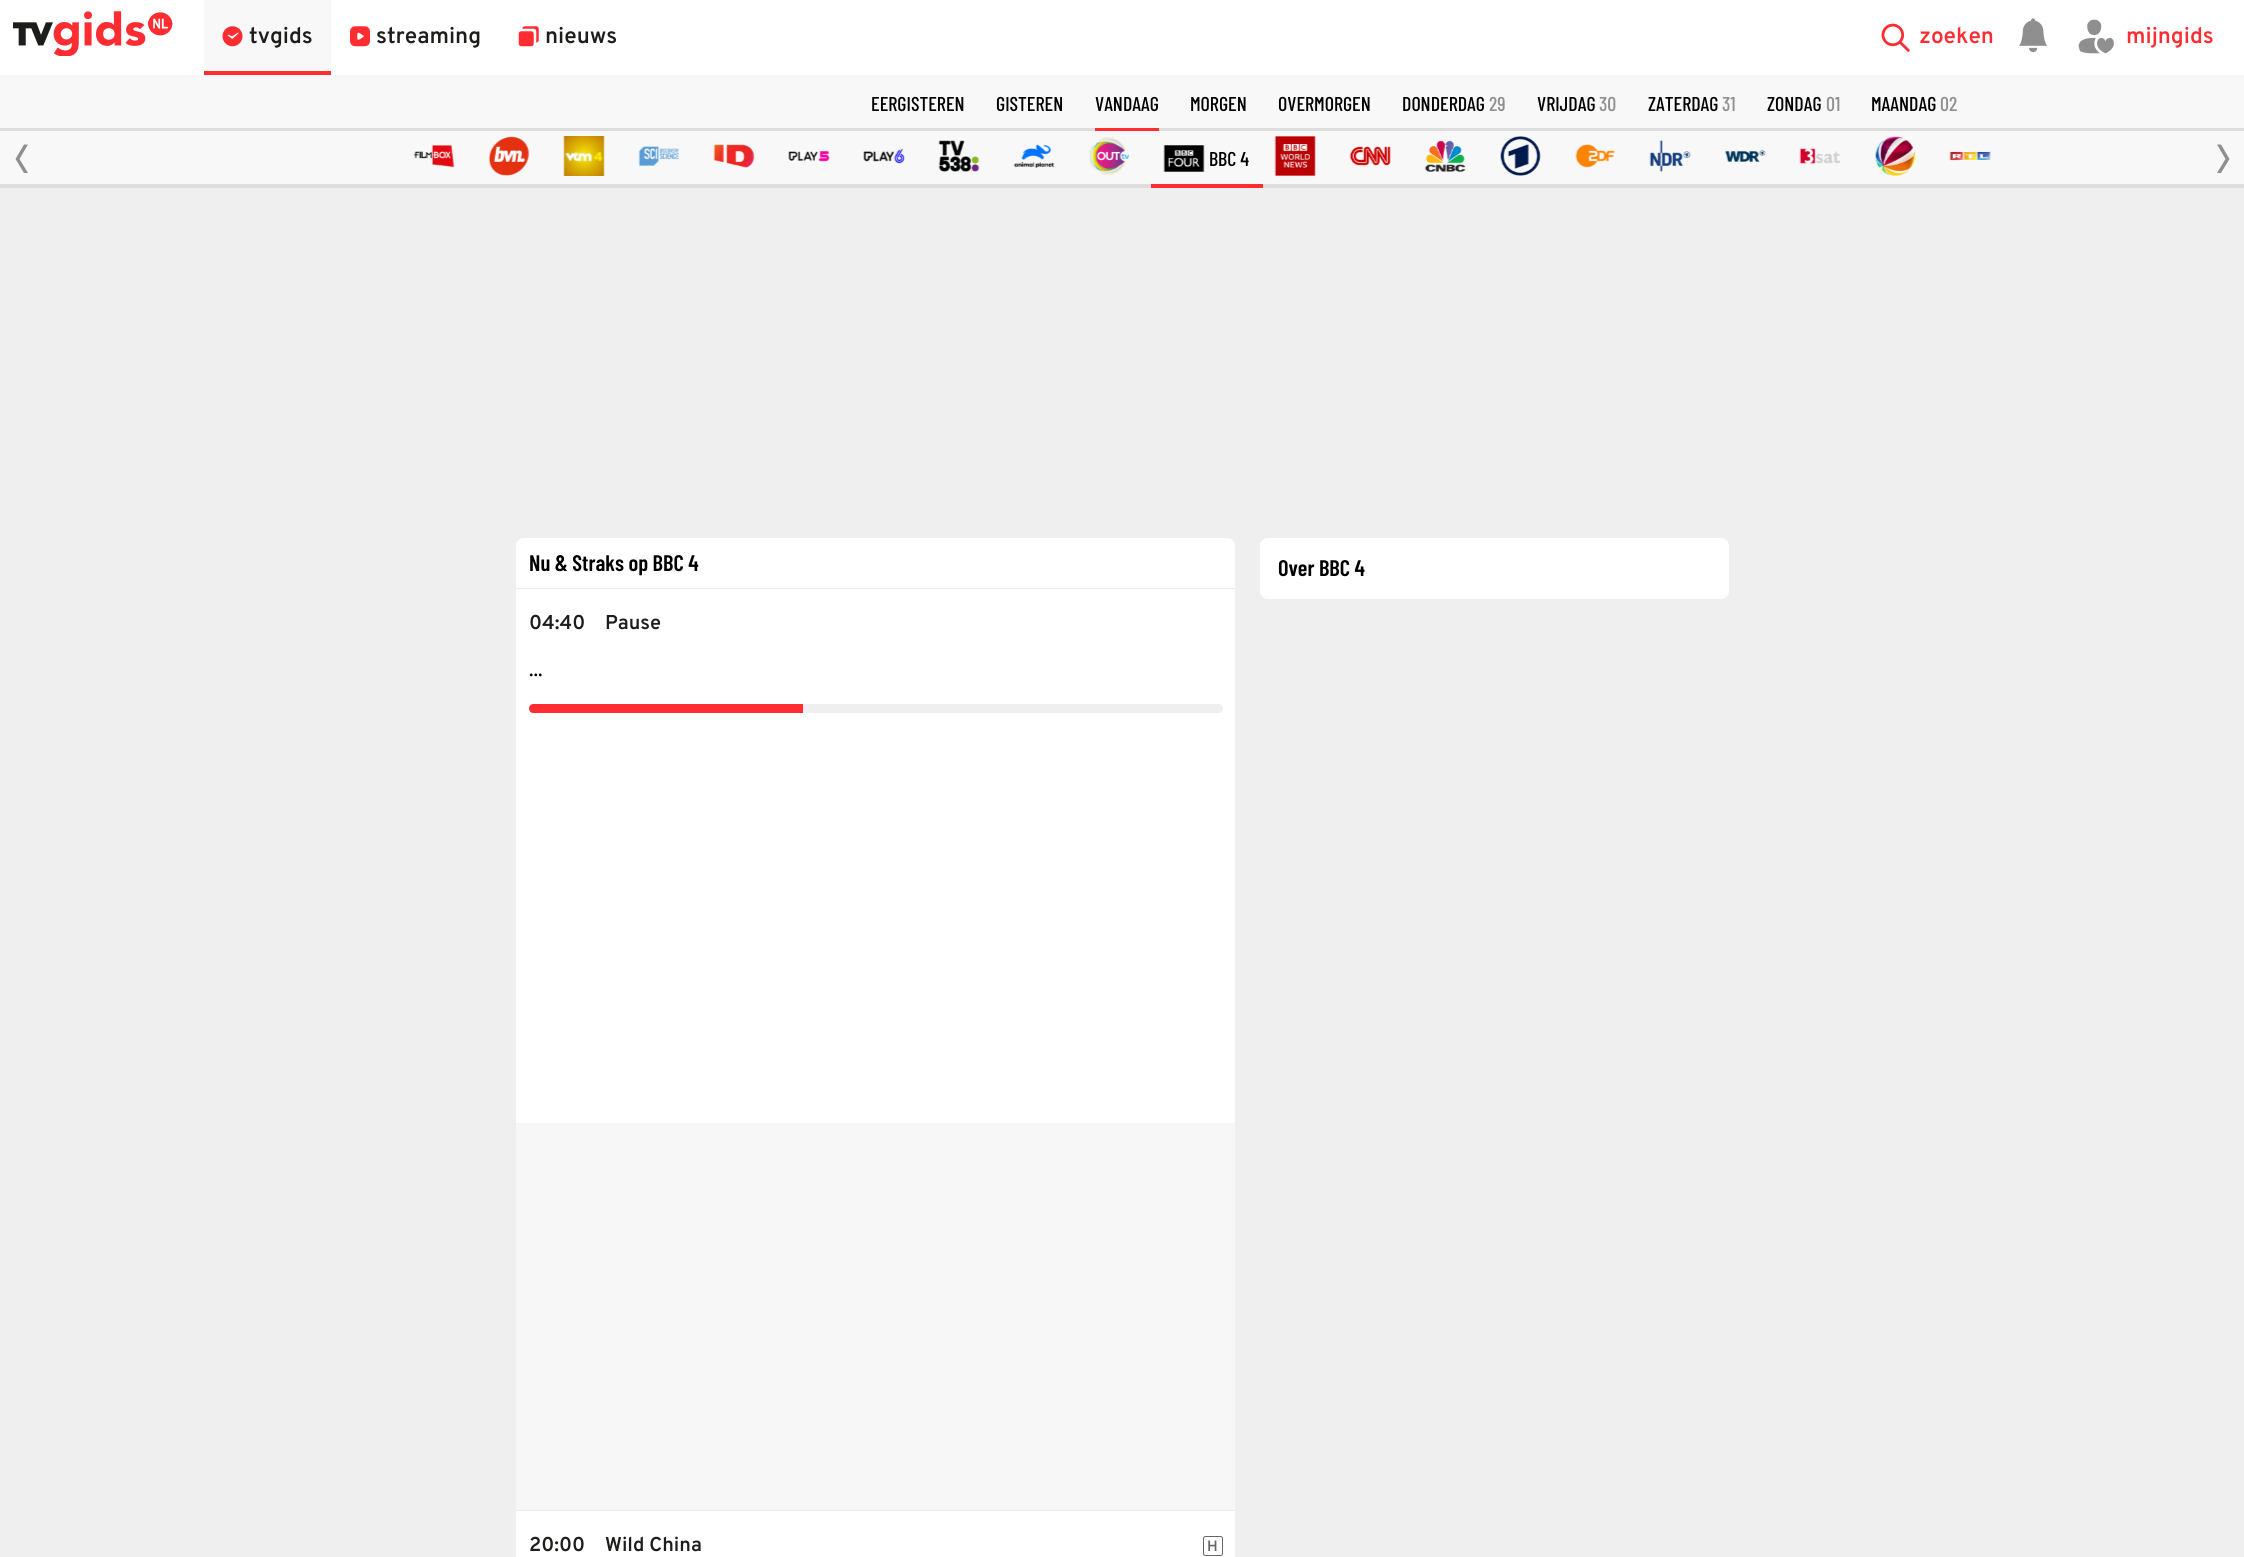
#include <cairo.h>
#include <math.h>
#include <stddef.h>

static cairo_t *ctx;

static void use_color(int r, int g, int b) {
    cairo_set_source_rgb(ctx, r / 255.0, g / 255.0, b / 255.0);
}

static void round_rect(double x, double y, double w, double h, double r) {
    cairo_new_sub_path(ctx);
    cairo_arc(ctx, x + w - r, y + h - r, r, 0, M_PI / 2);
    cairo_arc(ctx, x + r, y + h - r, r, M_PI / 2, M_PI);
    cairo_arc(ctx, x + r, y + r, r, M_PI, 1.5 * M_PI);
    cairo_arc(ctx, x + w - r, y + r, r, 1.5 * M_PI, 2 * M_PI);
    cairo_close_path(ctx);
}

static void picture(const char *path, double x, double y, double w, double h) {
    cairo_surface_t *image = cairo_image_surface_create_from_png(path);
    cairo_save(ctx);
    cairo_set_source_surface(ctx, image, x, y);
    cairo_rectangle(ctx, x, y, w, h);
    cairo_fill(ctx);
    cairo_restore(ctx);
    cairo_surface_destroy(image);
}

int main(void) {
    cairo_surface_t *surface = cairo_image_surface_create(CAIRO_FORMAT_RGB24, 2244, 1557);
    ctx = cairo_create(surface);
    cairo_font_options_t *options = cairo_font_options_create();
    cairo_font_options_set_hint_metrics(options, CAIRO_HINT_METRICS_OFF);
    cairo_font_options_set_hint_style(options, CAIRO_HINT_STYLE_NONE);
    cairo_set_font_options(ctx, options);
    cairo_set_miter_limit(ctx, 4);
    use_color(255, 255, 255);
    cairo_paint(ctx);
    picture("img1.png", 13, 11, 160, 45);
    use_color(248, 248, 248);
    cairo_rectangle(ctx, 204, 0, 127, 71);
    cairo_fill(ctx);
    picture("img2.png", 222, 26, 21, 21);
    cairo_select_font_face(ctx, "Overpass SemiBold", CAIRO_FONT_SLANT_NORMAL, CAIRO_FONT_WEIGHT_NORMAL);
    cairo_set_font_size(ctx, 22.5);
    use_color(29, 29, 27);
    cairo_move_to(ctx, 249, 43);
    cairo_show_text(ctx, "tvgids");
    use_color(255, 44, 50);
    cairo_rectangle(ctx, 204, 71, 127, 4);
    cairo_fill(ctx);
    picture("img3.png", 350, 26, 20, 21);
    use_color(29, 29, 27);
    cairo_move_to(ctx, 376, 43);
    cairo_show_text(ctx, "streaming");
    picture("img4.png", 518, 26, 21, 21);
    cairo_move_to(ctx, 545, 43);
    cairo_show_text(ctx, "nieuws");
    picture("img5.png", 1881, 23, 29, 29);
    use_color(255, 44, 50);
    cairo_move_to(ctx, 1919, 43);
    cairo_show_text(ctx, "zoeken");
    picture("img6.png", 2018, 18, 30, 35);
    picture("img7.png", 2078, 19, 36, 35);
    cairo_move_to(ctx, 2126, 43);
    cairo_show_text(ctx, "mijngids");
    use_color(222, 222, 222);
    cairo_rectangle(ctx, 0, 128, 2244, 3);
    cairo_fill(ctx);
    use_color(248, 248, 248);
    cairo_rectangle(ctx, 0, 75, 2244, 53);
    cairo_fill(ctx);
    cairo_select_font_face(ctx, "Barlow Condensed Medium", CAIRO_FONT_SLANT_NORMAL, CAIRO_FONT_WEIGHT_NORMAL);
    cairo_set_font_size(ctx, 20);
    use_color(0, 0, 0);
    cairo_move_to(ctx, 871, 111);
    cairo_show_text(ctx, "EERGISTEREN");
    cairo_move_to(ctx, 996, 111);
    cairo_show_text(ctx, "GISTEREN");
    cairo_move_to(ctx, 1095, 111);
    cairo_show_text(ctx, "VANDAAG");
    use_color(255, 44, 50);
    cairo_rectangle(ctx, 1095, 128, 64, 3);
    cairo_fill(ctx);
    use_color(0, 0, 0);
    cairo_move_to(ctx, 1190, 111);
    cairo_show_text(ctx, "MORGEN");
    cairo_move_to(ctx, 1278, 111);
    cairo_show_text(ctx, "OVERMORGEN");
    cairo_move_to(ctx, 1402, 111);
    cairo_show_text(ctx, "DONDERDAG");
    use_color(143, 143, 143);
    cairo_move_to(ctx, 1489, 111);
    cairo_show_text(ctx, "29");
    use_color(0, 0, 0);
    cairo_move_to(ctx, 1537, 111);
    cairo_show_text(ctx, "VRIJDAG");
    use_color(143, 143, 143);
    cairo_move_to(ctx, 1599, 111);
    cairo_show_text(ctx, "30");
    use_color(0, 0, 0);
    cairo_move_to(ctx, 1648, 111);
    cairo_show_text(ctx, "ZATERDAG");
    use_color(143, 143, 143);
    cairo_move_to(ctx, 1722, 111);
    cairo_show_text(ctx, "31");
    use_color(0, 0, 0);
    cairo_move_to(ctx, 1767, 111);
    cairo_show_text(ctx, "ZONDAG");
    use_color(143, 143, 143);
    cairo_move_to(ctx, 1826, 111);
    cairo_show_text(ctx, "01");
    use_color(0, 0, 0);
    cairo_move_to(ctx, 1871, 111);
    cairo_show_text(ctx, "MAANDAG");
    use_color(143, 143, 143);
    cairo_move_to(ctx, 1940, 111);
    cairo_show_text(ctx, "02");
    use_color(222, 222, 222);
    cairo_rectangle(ctx, 0, 184, 2244, 4);
    cairo_fill(ctx);
    use_color(248, 248, 248);
    cairo_rectangle(ctx, 0, 131, 2244, 53);
    cairo_fill(ctx);
    use_color(143, 143, 143);
    cairo_new_path(ctx);
    cairo_move_to(ctx, 24, 173);
    cairo_line_to(ctx, 15.5, 159);
    cairo_line_to(ctx, 24, 144.5);
    cairo_line_to(ctx, 28, 144.5);
    cairo_line_to(ctx, 19.5, 159);
    cairo_line_to(ctx, 28, 173);
    cairo_close_path(ctx);
    cairo_fill(ctx);
    picture("img8.png", 413, 145, 42, 23);
    picture("img9.png", 488, 136, 42, 40);
    picture("img10.png", 563, 136, 42, 40);
    picture("img11.png", 638, 146, 42, 20);
    picture("img12.png", 713, 144, 42, 24);
    picture("img13.png", 788, 150, 42, 12);
    picture("img14.png", 863, 148, 42, 16);
    picture("img15.png", 938, 140, 42, 32);
    picture("img16.png", 1013, 144, 42, 24);
    picture("img17.png", 1089, 137, 41, 38);
    picture("img18.png", 1163, 145, 42, 27);
    use_color(0, 0, 0);
    cairo_move_to(ctx, 1209, 166);
    cairo_show_text(ctx, "BBC 4");
    use_color(255, 44, 50);
    cairo_rectangle(ctx, 1151, 184, 112, 4);
    cairo_fill(ctx);
    picture("img19.png", 1274, 136, 42, 40);
    picture("img20.png", 1349, 146, 42, 20);
    picture("img21.png", 1424, 140, 42, 32);
    picture("img22.png", 1500, 136, 41, 40);
    picture("img23.png", 1575, 144, 40, 24);
    picture("img24.png", 1649, 140, 42, 32);
    picture("img25.png", 1724, 150, 42, 12);
    picture("img26.png", 1799, 148, 41, 16);
    picture("img27.png", 1874, 136, 42, 40);
    picture("img28.png", 1949, 151, 42, 10);
    use_color(143, 143, 143);
    cairo_new_path(ctx);
    cairo_move_to(ctx, 2221, 144.5);
    cairo_line_to(ctx, 2229.5, 159);
    cairo_line_to(ctx, 2221, 173);
    cairo_line_to(ctx, 2217, 173);
    cairo_line_to(ctx, 2225.5, 159);
    cairo_line_to(ctx, 2217, 144.5);
    cairo_close_path(ctx);
    cairo_fill(ctx);
    use_color(239, 239, 239);
    cairo_rectangle(ctx, 0, 188, 2244, 1369);
    cairo_fill(ctx);
    use_color(255, 255, 255);
    cairo_new_path(ctx);
    cairo_move_to(ctx, 524, 538);
    cairo_line_to(ctx, 1227, 538);
    cairo_curve_to(ctx, 1231.5, 538, 1235, 541.5, 1235, 546);
    cairo_line_to(ctx, 1235, 588);
    cairo_line_to(ctx, 516, 588);
    cairo_line_to(ctx, 516, 546);
    cairo_curve_to(ctx, 516, 541.5, 519.5, 538, 524, 538);
    cairo_close_path(ctx);
    cairo_fill(ctx);
    cairo_select_font_face(ctx, "Barlow Condensed SemiBold", CAIRO_FONT_SLANT_NORMAL, CAIRO_FONT_WEIGHT_NORMAL);
    cairo_set_font_size(ctx, 22.5);
    use_color(0, 0, 0);
    cairo_move_to(ctx, 529, 571);
    cairo_show_text(ctx, "Nu & Straks op BBC 4");
    use_color(247, 247, 247);
    cairo_rectangle(ctx, 516, 1123, 719, 387);
    cairo_fill(ctx);
    use_color(255, 255, 255);
    cairo_rectangle(ctx, 516, 589, 719, 534);
    cairo_fill(ctx);
    use_color(234, 234, 234);
    cairo_rectangle(ctx, 516, 588, 719, 1);
    cairo_fill(ctx);
    cairo_select_font_face(ctx, "Overpass SemiBold", CAIRO_FONT_SLANT_NORMAL, CAIRO_FONT_WEIGHT_NORMAL);
    cairo_set_font_size(ctx, 20);
    use_color(29, 29, 27);
    cairo_move_to(ctx, 529, 629);
    cairo_show_text(ctx, "04:40");
    cairo_move_to(ctx, 605, 629);
    cairo_show_text(ctx, "Pause");
    cairo_select_font_face(ctx, "Overpass", CAIRO_FONT_SLANT_NORMAL, CAIRO_FONT_WEIGHT_NORMAL);
    use_color(0, 0, 0);
    cairo_move_to(ctx, 529, 676);
    cairo_show_text(ctx, "...");
    use_color(239, 239, 239);
    round_rect(529, 704, 694, 9, 4.5);
    cairo_fill(ctx);
    use_color(255, 44, 50);
    cairo_new_path(ctx);
    cairo_move_to(ctx, 533.5, 704);
    cairo_line_to(ctx, 803, 704);
    cairo_line_to(ctx, 803, 713);
    cairo_line_to(ctx, 533.5, 713);
    cairo_curve_to(ctx, 531, 713, 529, 711, 529, 708.5);
    cairo_curve_to(ctx, 529, 706, 531, 704, 533.5, 704);
    cairo_close_path(ctx);
    cairo_fill(ctx);
    use_color(255, 255, 255);
    cairo_rectangle(ctx, 516, 1511, 719, 46);
    cairo_fill(ctx);
    use_color(234, 234, 234);
    cairo_rectangle(ctx, 516, 1510, 719, 1);
    cairo_fill(ctx);
    cairo_select_font_face(ctx, "Overpass SemiBold", CAIRO_FONT_SLANT_NORMAL, CAIRO_FONT_WEIGHT_NORMAL);
    use_color(29, 29, 27);
    cairo_move_to(ctx, 529, 1551);
    cairo_show_text(ctx, "20:00");
    cairo_move_to(ctx, 605, 1551);
    cairo_show_text(ctx, "Wild China");
    round_rect(1203.5, 1536.5, 19, 19, 2);
    use_color(102, 102, 102);
    cairo_set_line_width(ctx, 1);
    cairo_stroke(ctx);
    cairo_set_font_size(ctx, 15);
    cairo_move_to(ctx, 1207, 1551);
    cairo_show_text(ctx, "H");
    use_color(255, 255, 255);
    round_rect(1260, 538, 469, 61, 8);
    cairo_fill(ctx);
    cairo_select_font_face(ctx, "Barlow Condensed SemiBold", CAIRO_FONT_SLANT_NORMAL, CAIRO_FONT_WEIGHT_NORMAL);
    cairo_set_font_size(ctx, 22.5);
    use_color(0, 0, 0);
    cairo_move_to(ctx, 1278, 576);
    cairo_show_text(ctx, "Over BBC 4");
    cairo_surface_write_to_png(surface, "result.png");
    cairo_font_options_destroy(options);
    cairo_destroy(ctx);
    cairo_surface_destroy(surface);
    return 0;
}
